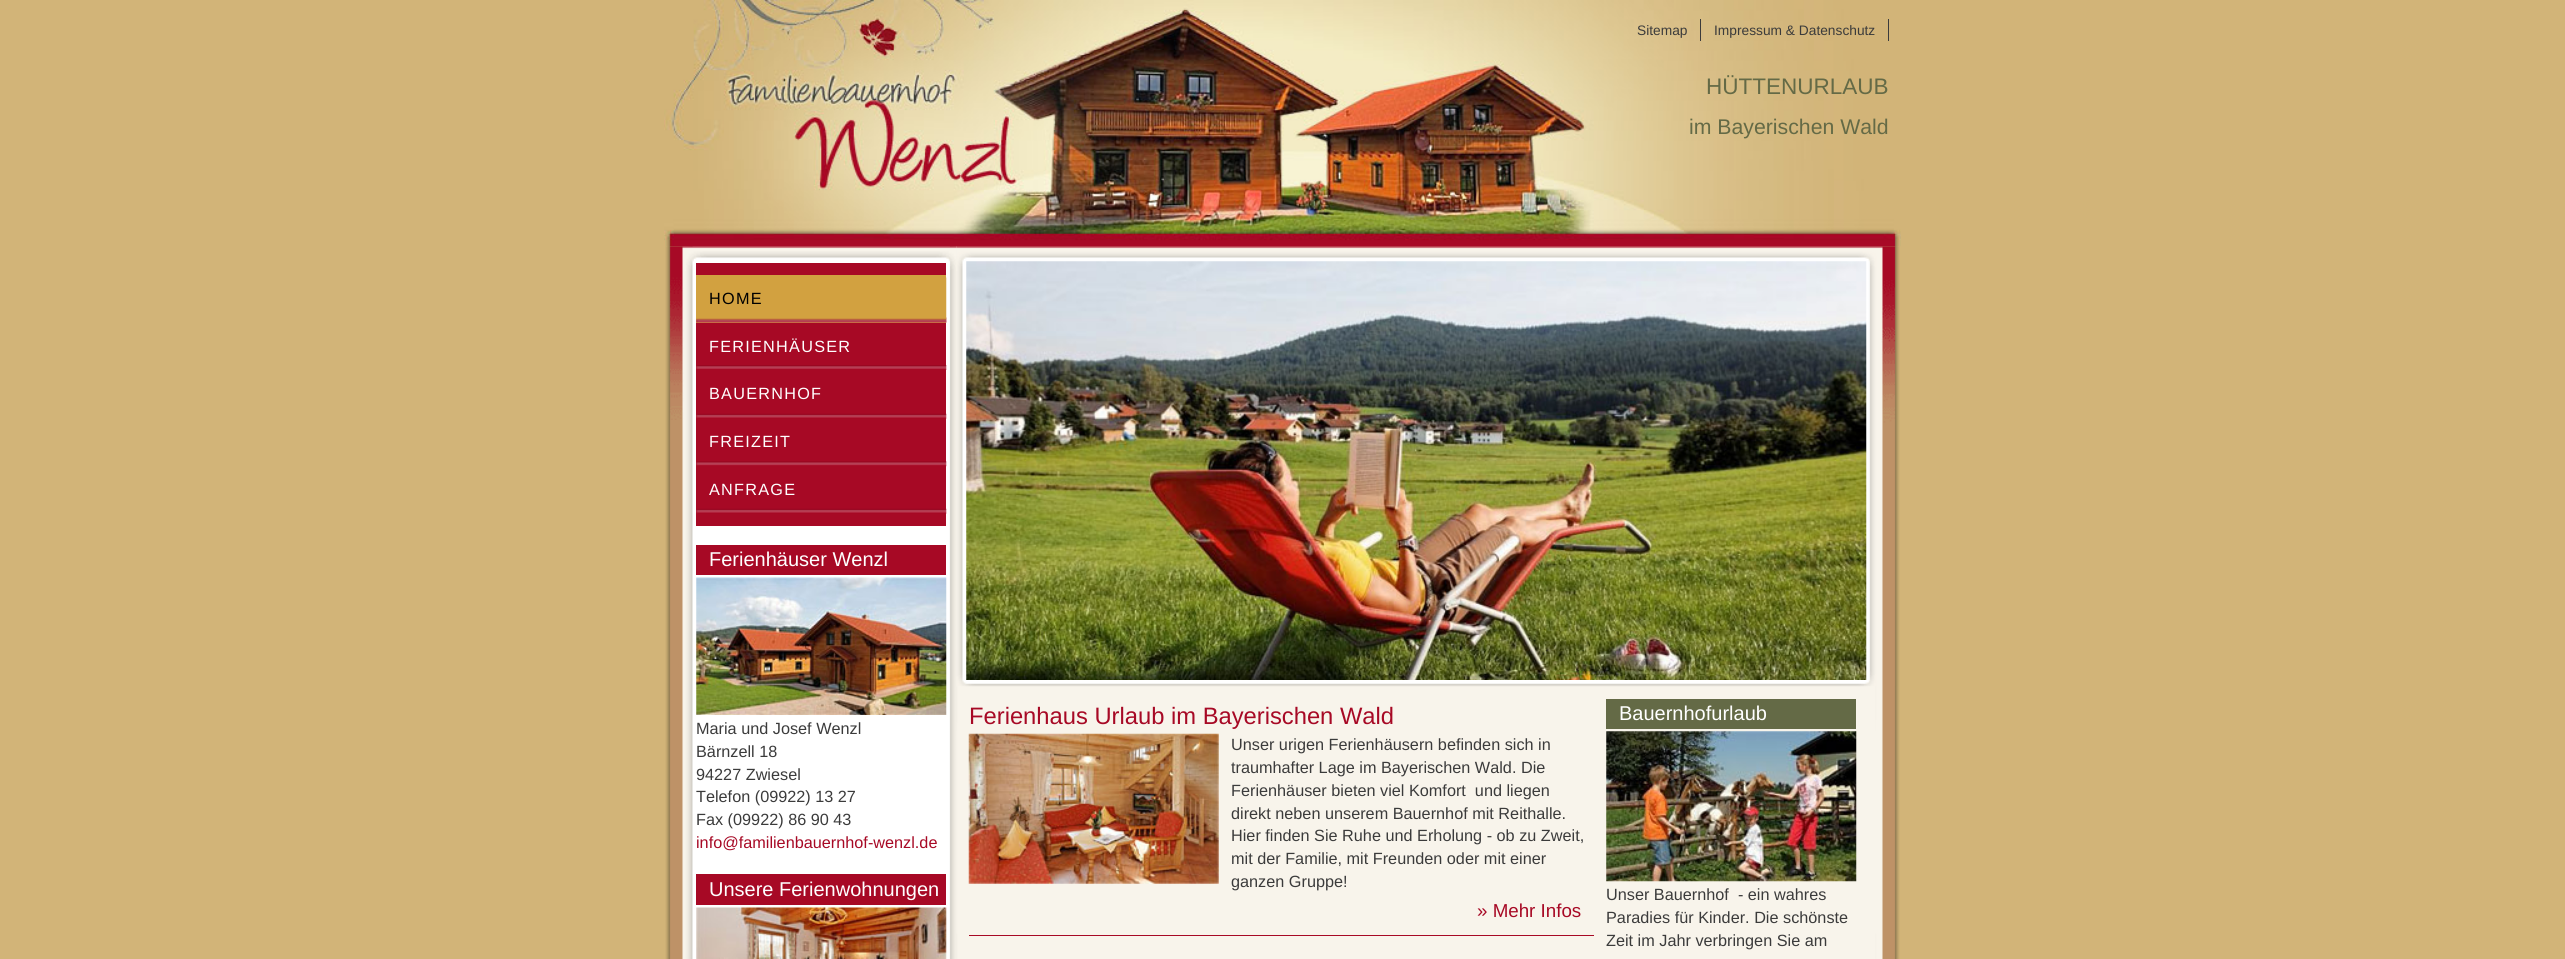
#include <cairo.h>
#include <math.h>
#include <stddef.h>

static cairo_t *ctx;

static void use_color(int r, int g, int b) {
    cairo_set_source_rgb(ctx, r / 255.0, g / 255.0, b / 255.0);
}

static void spaced_text(double x, double y, const char *s, double letter, double word) {
    cairo_move_to(ctx, x, y);
    while (*s) {
        char ch[5] = {0};
        int n = 0;
        do ch[n++] = *s++; while ((*s & 0xC0) == 0x80);
        cairo_show_text(ctx, ch);
        cairo_rel_move_to(ctx, letter + word * (*ch == ' '), 0);
    }
}

static void picture(const char *path, double x, double y, double w, double h) {
    cairo_surface_t *image = cairo_image_surface_create_from_png(path);
    cairo_save(ctx);
    cairo_set_source_surface(ctx, image, x, y);
    cairo_rectangle(ctx, x, y, w, h);
    cairo_fill(ctx);
    cairo_restore(ctx);
    cairo_surface_destroy(image);
}

int main(void) {
    cairo_surface_t *surface = cairo_image_surface_create(CAIRO_FORMAT_RGB24, 2565, 959);
    ctx = cairo_create(surface);
    cairo_font_options_t *options = cairo_font_options_create();
    cairo_font_options_set_hint_metrics(options, CAIRO_HINT_METRICS_OFF);
    cairo_font_options_set_hint_style(options, CAIRO_HINT_STYLE_NONE);
    cairo_set_font_options(ctx, options);
    cairo_set_miter_limit(ctx, 4);
    use_color(210, 180, 120);
    cairo_paint(ctx);
    picture("img1.png", 664, 0, 1237, 247);
    use_color(59, 59, 59);
    cairo_rectangle(ctx, 1700, 19, 1, 22);
    cairo_fill(ctx);
    cairo_select_font_face(ctx, "Liberation Sans", CAIRO_FONT_SLANT_NORMAL, CAIRO_FONT_WEIGHT_NORMAL);
    cairo_set_font_size(ctx, 13.75);
    cairo_move_to(ctx, 1637, 35);
    cairo_show_text(ctx, "Sitemap");
    cairo_rectangle(ctx, 1888, 19, 1, 22);
    cairo_fill(ctx);
    cairo_move_to(ctx, 1714, 35);
    cairo_show_text(ctx, "Impressum & Datenschutz");
    cairo_set_font_size(ctx, 22.5);
    use_color(100, 106, 70);
    cairo_move_to(ctx, 1706, 94);
    cairo_show_text(ctx, "HÜTTENURLAUB");
    cairo_set_font_size(ctx, 21.25);
    cairo_move_to(ctx, 1689, 134);
    cairo_show_text(ctx, "im Bayerischen Wald");
    picture("img2.png", 665, 246, 1235, 713);
    picture("img3.png", 667, 246, 290, 174);
    use_color(167, 9, 37);
    cairo_rectangle(ctx, 696, 263, 250, 263);
    cairo_fill(ctx);
    picture("img4.png", 946, 317, 1, 6);
    use_color(210, 161, 64);
    cairo_rectangle(ctx, 696, 275, 250, 48);
    cairo_fill(ctx);
    picture("img5.png", 696, 277, 251, 46);
    cairo_set_font_size(ctx, 16.25);
    use_color(0, 0, 0);
    spaced_text(709, 304, "HOME", 1.25, 0);
    picture("img6.png", 696, 365, 251, 5);
    use_color(255, 255, 255);
    spaced_text(709, 352, "FERIENHÄUSER", 1.25, 0);
    picture("img7.png", 696, 413, 251, 6);
    spaced_text(709, 399, "BAUERNHOF", 1.25, 0);
    picture("img8.png", 696, 461, 251, 6);
    spaced_text(709, 447, "FREIZEIT", 1.25, 0);
    picture("img7.png", 696, 508, 251, 6);
    spaced_text(709, 495, "ANFRAGE", 1.25, 0);
    use_color(167, 9, 37);
    cairo_rectangle(ctx, 696, 545, 250, 30);
    cairo_fill(ctx);
    cairo_set_font_size(ctx, 20);
    use_color(255, 255, 255);
    cairo_move_to(ctx, 709, 566);
    cairo_show_text(ctx, "Ferienhäuser Wenzl");
    picture("img9.png", 696, 577, 251, 138);
    cairo_set_font_size(ctx, 16.25);
    use_color(59, 59, 59);
    cairo_move_to(ctx, 696, 734);
    cairo_show_text(ctx, "Maria und Josef Wenzl");
    cairo_move_to(ctx, 696, 757);
    cairo_show_text(ctx, "Bärnzell 18");
    cairo_move_to(ctx, 696, 780);
    cairo_show_text(ctx, "94227 Zwiesel");
    cairo_move_to(ctx, 696, 802);
    cairo_show_text(ctx, "Telefon (09922) 13 27");
    cairo_move_to(ctx, 696, 825);
    cairo_show_text(ctx, "Fax (09922) 86 90 43");
    use_color(167, 9, 37);
    cairo_move_to(ctx, 696, 848);
    cairo_show_text(ctx, "info@familienbauernhof-wenzl.de");
    cairo_rectangle(ctx, 696, 874, 250, 31);
    cairo_fill(ctx);
    cairo_set_font_size(ctx, 20);
    use_color(255, 255, 255);
    cairo_move_to(ctx, 709, 896);
    cairo_show_text(ctx, "Unsere Ferienwohnungen");
    picture("img10.png", 696, 907, 251, 52);
    picture("img11.png", 956, 246, 942, 441);
    picture("img12.png", 966, 261, 901, 419);
    use_color(167, 9, 37);
    cairo_rectangle(ctx, 969, 935, 625, 1);
    cairo_fill(ctx);
    cairo_set_font_size(ctx, 23.75);
    cairo_move_to(ctx, 969, 724);
    cairo_show_text(ctx, "Ferienhaus Urlaub im Bayerischen Wald");
    picture("img13.png", 968, 733, 251, 151);
    cairo_set_font_size(ctx, 16.25);
    use_color(59, 59, 59);
    cairo_move_to(ctx, 1231, 750);
    cairo_show_text(ctx, "Unser urigen Ferienhäusern befinden sich in");
    cairo_move_to(ctx, 1231, 773);
    cairo_show_text(ctx, "traumhafter Lage im Bayerischen Wald. Die");
    cairo_move_to(ctx, 1231, 796);
    cairo_show_text(ctx, "Ferienhäuser bieten viel Komfort  und liegen");
    cairo_move_to(ctx, 1231, 819);
    cairo_show_text(ctx, "direkt neben unserem Bauernhof mit Reithalle.");
    cairo_move_to(ctx, 1231, 841);
    cairo_show_text(ctx, "Hier finden Sie Ruhe und Erholung - ob zu Zweit,");
    cairo_move_to(ctx, 1231, 864);
    cairo_show_text(ctx, "mit der Familie, mit Freunden oder mit einer");
    cairo_move_to(ctx, 1231, 887);
    cairo_show_text(ctx, "ganzen Gruppe!");
    cairo_set_font_size(ctx, 18.75);
    use_color(167, 9, 37);
    cairo_move_to(ctx, 1477, 917);
    cairo_show_text(ctx, "» Mehr Infos");
    use_color(100, 106, 70);
    cairo_rectangle(ctx, 1606, 699, 250, 30);
    cairo_fill(ctx);
    cairo_set_font_size(ctx, 20);
    use_color(255, 255, 255);
    cairo_move_to(ctx, 1619, 720);
    cairo_show_text(ctx, "Bauernhofurlaub");
    picture("img14.png", 1606, 731, 251, 151);
    cairo_set_font_size(ctx, 16.25);
    use_color(59, 59, 59);
    cairo_move_to(ctx, 1606, 900);
    cairo_show_text(ctx, "Unser Bauernhof  - ein wahres");
    cairo_move_to(ctx, 1606, 923);
    cairo_show_text(ctx, "Paradies für Kinder. Die schönste");
    cairo_move_to(ctx, 1606, 946);
    cairo_show_text(ctx, "Zeit im Jahr verbringen Sie am");
    cairo_surface_write_to_png(surface, "result.png");
    cairo_font_options_destroy(options);
    cairo_destroy(ctx);
    cairo_surface_destroy(surface);
    return 0;
}
